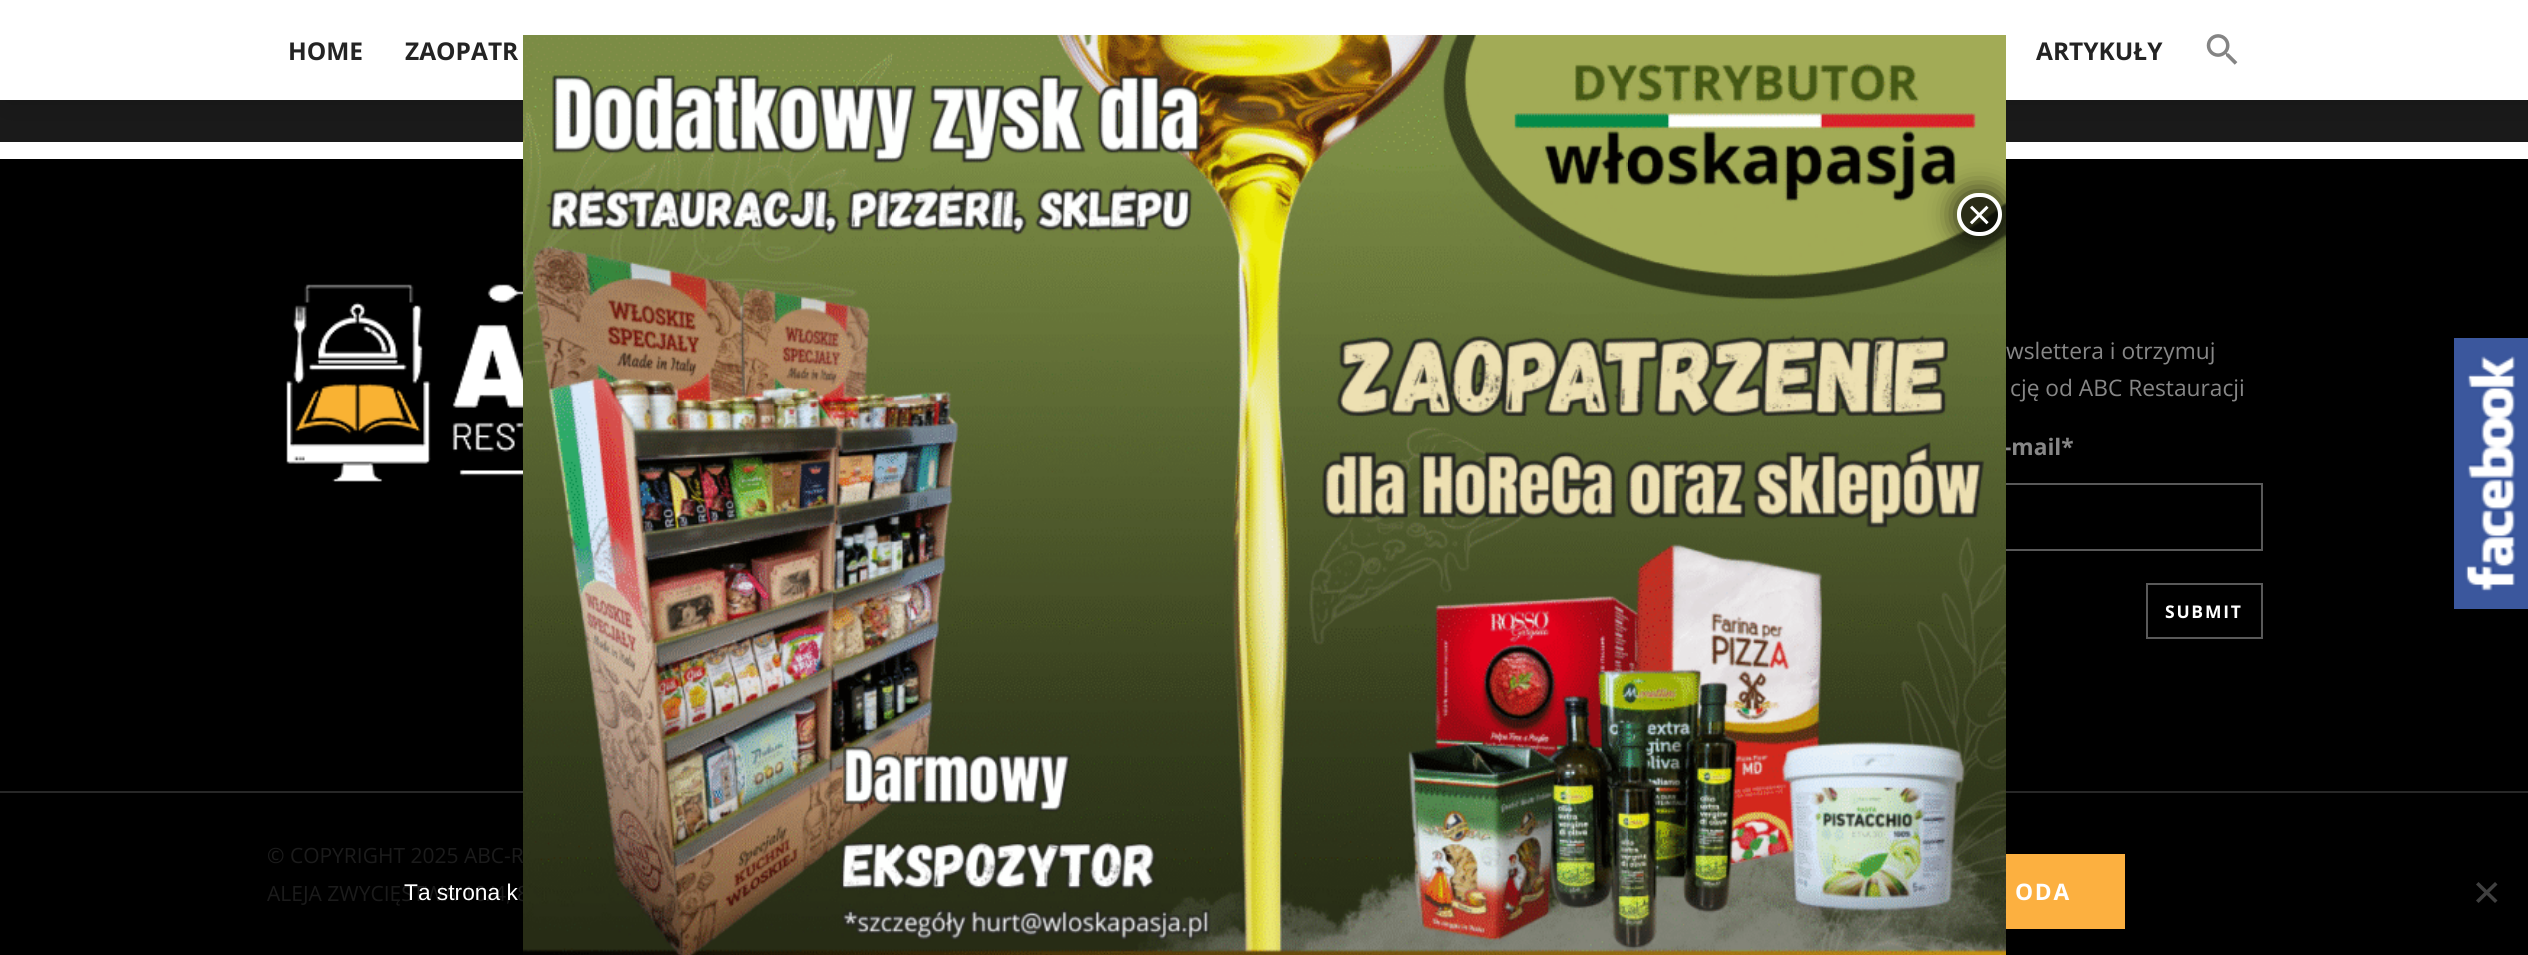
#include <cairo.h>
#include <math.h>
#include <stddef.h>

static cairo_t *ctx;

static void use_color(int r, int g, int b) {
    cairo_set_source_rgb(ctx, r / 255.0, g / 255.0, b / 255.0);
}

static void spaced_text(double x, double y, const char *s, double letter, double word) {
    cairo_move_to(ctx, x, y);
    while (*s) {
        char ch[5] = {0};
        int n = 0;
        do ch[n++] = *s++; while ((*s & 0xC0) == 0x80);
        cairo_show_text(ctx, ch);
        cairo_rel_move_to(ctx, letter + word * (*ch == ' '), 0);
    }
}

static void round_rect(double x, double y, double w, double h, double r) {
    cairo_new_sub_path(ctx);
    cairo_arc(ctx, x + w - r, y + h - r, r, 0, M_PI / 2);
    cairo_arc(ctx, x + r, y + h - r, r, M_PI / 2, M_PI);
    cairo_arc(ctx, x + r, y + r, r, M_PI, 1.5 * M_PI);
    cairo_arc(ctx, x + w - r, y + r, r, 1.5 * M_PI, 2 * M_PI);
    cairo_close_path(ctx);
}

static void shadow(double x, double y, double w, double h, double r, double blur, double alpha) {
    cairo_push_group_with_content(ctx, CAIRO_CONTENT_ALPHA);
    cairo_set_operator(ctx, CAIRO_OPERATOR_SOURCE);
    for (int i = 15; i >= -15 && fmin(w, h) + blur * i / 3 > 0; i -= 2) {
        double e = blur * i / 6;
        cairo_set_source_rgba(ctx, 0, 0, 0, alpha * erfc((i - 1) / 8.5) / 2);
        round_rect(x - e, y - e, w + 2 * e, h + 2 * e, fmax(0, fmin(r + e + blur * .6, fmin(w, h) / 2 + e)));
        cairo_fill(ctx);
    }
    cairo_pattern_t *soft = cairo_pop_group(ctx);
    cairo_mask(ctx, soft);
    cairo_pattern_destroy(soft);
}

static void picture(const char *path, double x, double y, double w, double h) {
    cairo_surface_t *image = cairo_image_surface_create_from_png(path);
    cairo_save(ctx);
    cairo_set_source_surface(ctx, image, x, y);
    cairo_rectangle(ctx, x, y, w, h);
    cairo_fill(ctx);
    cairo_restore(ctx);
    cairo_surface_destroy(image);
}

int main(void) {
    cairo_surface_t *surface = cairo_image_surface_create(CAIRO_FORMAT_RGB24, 2528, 955);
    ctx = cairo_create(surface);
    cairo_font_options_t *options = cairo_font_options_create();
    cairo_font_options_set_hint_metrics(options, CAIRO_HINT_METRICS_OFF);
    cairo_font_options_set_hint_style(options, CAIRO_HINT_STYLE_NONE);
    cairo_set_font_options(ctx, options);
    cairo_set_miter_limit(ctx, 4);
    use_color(255, 255, 255);
    cairo_paint(ctx);
    use_color(26, 26, 26);
    cairo_rectangle(ctx, 0, 100, 2528, 42);
    cairo_fill(ctx);
    use_color(1, 2, 2);
    shadow(5, 2, 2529, 100, 0, 16, 0.15);
    use_color(255, 255, 255);
    cairo_rectangle(ctx, 0, 0, 2528, 100);
    cairo_fill(ctx);
    cairo_select_font_face(ctx, "Open Sans", CAIRO_FONT_SLANT_NORMAL, CAIRO_FONT_WEIGHT_BOLD);
    cairo_set_font_size(ctx, 24.5);
    use_color(35, 35, 35);
    cairo_move_to(ctx, 288, 60);
    cairo_show_text(ctx, "HOME");
    cairo_move_to(ctx, 405, 60);
    cairo_show_text(ctx, "ZAOPATR");
    cairo_move_to(ctx, 2036, 60);
    cairo_show_text(ctx, "ARTYKUŁY");
    picture("img1.png", 2206, 34, 32, 31);
    use_color(0, 0, 0);
    cairo_rectangle(ctx, 0, 159, 2528, 796);
    cairo_fill(ctx);
    cairo_set_font_size(ctx, 22.75);
    use_color(135, 135, 135);
    cairo_move_to(ctx, 2004, 455);
    cairo_show_text(ctx, "-mail*");
    cairo_rectangle(ctx, 1804, 484, 458, 66);
    use_color(89, 89, 89);
    cairo_stroke(ctx);
    use_color(39, 39, 39);
    cairo_rectangle(ctx, 0, 791, 2528, 2);
    cairo_fill(ctx);
    cairo_select_font_face(ctx, "Open Sans", CAIRO_FONT_SLANT_NORMAL, CAIRO_FONT_WEIGHT_NORMAL);
    cairo_set_font_size(ctx, 21);
    use_color(27, 27, 27);
    cairo_move_to(ctx, 267, 863);
    cairo_show_text(ctx, "© COPYRIGHT 2025 ABC-R");
    cairo_move_to(ctx, 267, 901);
    cairo_show_text(ctx, "ALEJA ZWYCIĘSTWA 10/4, 8");
    picture("img2.png", 523, 35, 1483, 920);
    cairo_save(ctx);
    cairo_set_fill_rule(ctx, CAIRO_FILL_RULE_EVEN_ODD);
    cairo_new_path(ctx);
    cairo_move_to(ctx, 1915, 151);
    cairo_line_to(ctx, 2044, 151);
    cairo_line_to(ctx, 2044, 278);
    cairo_line_to(ctx, 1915, 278);
    cairo_close_path(ctx);
    cairo_move_to(ctx, 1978.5, 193);
    cairo_line_to(ctx, 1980.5, 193);
    cairo_curve_to(ctx, 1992.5, 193, 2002, 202.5, 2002, 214.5);
    cairo_curve_to(ctx, 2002, 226.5, 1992.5, 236, 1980.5, 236);
    cairo_line_to(ctx, 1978.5, 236);
    cairo_curve_to(ctx, 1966.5, 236, 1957, 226.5, 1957, 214.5);
    cairo_curve_to(ctx, 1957, 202.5, 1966.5, 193, 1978.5, 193);
    cairo_close_path(ctx);
    cairo_clip(ctx);
    use_color(2, 2, 2);
    shadow(1955, 191, 49, 47, 23.5, 13, 0.75);
    cairo_restore(ctx);
    cairo_set_source_rgba(ctx, 0, 0, 0, 0.74);
    round_rect(1959, 195, 41, 39, 19.5);
    cairo_fill_preserve(ctx);
    use_color(255, 255, 255);
    cairo_set_line_width(ctx, 4);
    cairo_stroke(ctx);
    cairo_select_font_face(ctx, "Liberation Sans", CAIRO_FONT_SLANT_NORMAL, CAIRO_FONT_WEIGHT_NORMAL);
    cairo_set_font_size(ctx, 42);
    cairo_move_to(ctx, 1967, 229);
    cairo_show_text(ctx, "×");
    picture("img3.png", 286, 284, 237, 198);
    cairo_select_font_face(ctx, "Open Sans", CAIRO_FONT_SLANT_NORMAL, CAIRO_FONT_WEIGHT_NORMAL);
    cairo_set_font_size(ctx, 22.75);
    use_color(135, 135, 135);
    cairo_move_to(ctx, 2006, 359);
    cairo_show_text(ctx, "wslettera i otrzymuj");
    cairo_move_to(ctx, 2010, 396);
    cairo_show_text(ctx, "cję od ABC Restauracji");
    cairo_rectangle(ctx, 2147, 584, 115, 54);
    use_color(89, 89, 89);
    cairo_set_line_width(ctx, 2);
    cairo_stroke(ctx);
    cairo_select_font_face(ctx, "Open Sans", CAIRO_FONT_SLANT_NORMAL, CAIRO_FONT_WEIGHT_BOLD);
    cairo_set_font_size(ctx, 17.5);
    use_color(255, 255, 255);
    spaced_text(2165, 618, "SUBMIT", 1.75, 0);
    picture("img4.png", 2454, 338, 74, 271);
    cairo_select_font_face(ctx, "Liberation Sans", CAIRO_FONT_SLANT_NORMAL, CAIRO_FONT_WEIGHT_NORMAL);
    cairo_set_font_size(ctx, 22.75);
    cairo_move_to(ctx, 404, 900);
    cairo_show_text(ctx, "Ta strona k");
    use_color(252, 176, 64);
    cairo_rectangle(ctx, 2006, 854, 119, 75);
    cairo_fill(ctx);
    cairo_select_font_face(ctx, "Open Sans", CAIRO_FONT_SLANT_NORMAL, CAIRO_FONT_WEIGHT_BOLD);
    use_color(255, 255, 255);
    spaced_text(2015, 900, "ODA", 1.75, 0);
    use_color(64, 64, 64);
    cairo_new_path(ctx);
    cairo_move_to(ctx, 2495, 882);
    cairo_line_to(ctx, 2497.5, 884.5);
    cairo_line_to(ctx, 2478.5, 903);
    cairo_line_to(ctx, 2476, 900.5);
    cairo_close_path(ctx);
    cairo_fill(ctx);
    cairo_new_path(ctx);
    cairo_move_to(ctx, 2476, 884.5);
    cairo_line_to(ctx, 2478.5, 882);
    cairo_line_to(ctx, 2497.5, 900.5);
    cairo_line_to(ctx, 2495, 903);
    cairo_close_path(ctx);
    cairo_fill(ctx);
    cairo_surface_write_to_png(surface, "result.png");
    cairo_font_options_destroy(options);
    cairo_destroy(ctx);
    cairo_surface_destroy(surface);
    return 0;
}
